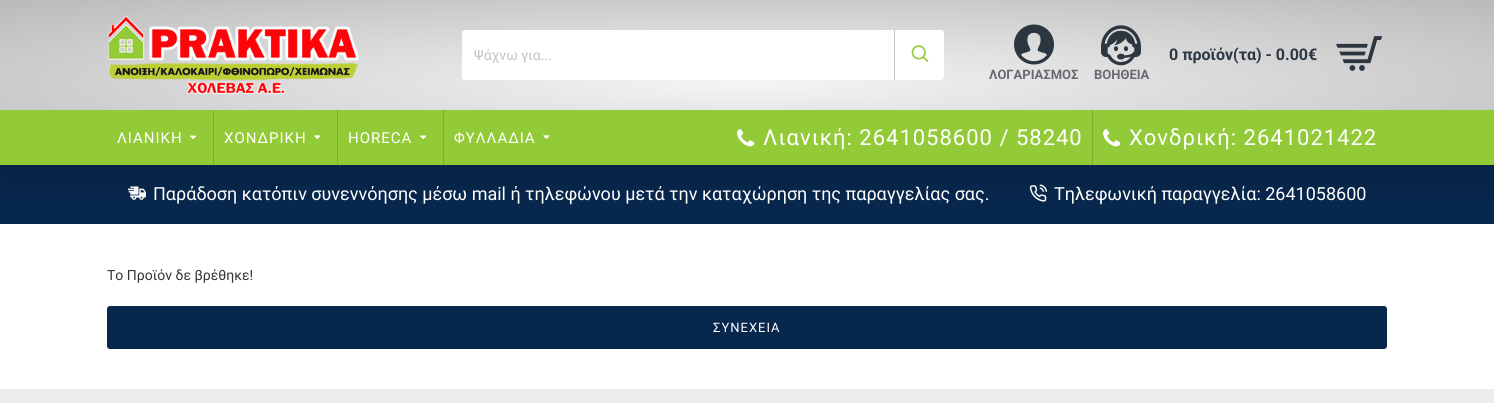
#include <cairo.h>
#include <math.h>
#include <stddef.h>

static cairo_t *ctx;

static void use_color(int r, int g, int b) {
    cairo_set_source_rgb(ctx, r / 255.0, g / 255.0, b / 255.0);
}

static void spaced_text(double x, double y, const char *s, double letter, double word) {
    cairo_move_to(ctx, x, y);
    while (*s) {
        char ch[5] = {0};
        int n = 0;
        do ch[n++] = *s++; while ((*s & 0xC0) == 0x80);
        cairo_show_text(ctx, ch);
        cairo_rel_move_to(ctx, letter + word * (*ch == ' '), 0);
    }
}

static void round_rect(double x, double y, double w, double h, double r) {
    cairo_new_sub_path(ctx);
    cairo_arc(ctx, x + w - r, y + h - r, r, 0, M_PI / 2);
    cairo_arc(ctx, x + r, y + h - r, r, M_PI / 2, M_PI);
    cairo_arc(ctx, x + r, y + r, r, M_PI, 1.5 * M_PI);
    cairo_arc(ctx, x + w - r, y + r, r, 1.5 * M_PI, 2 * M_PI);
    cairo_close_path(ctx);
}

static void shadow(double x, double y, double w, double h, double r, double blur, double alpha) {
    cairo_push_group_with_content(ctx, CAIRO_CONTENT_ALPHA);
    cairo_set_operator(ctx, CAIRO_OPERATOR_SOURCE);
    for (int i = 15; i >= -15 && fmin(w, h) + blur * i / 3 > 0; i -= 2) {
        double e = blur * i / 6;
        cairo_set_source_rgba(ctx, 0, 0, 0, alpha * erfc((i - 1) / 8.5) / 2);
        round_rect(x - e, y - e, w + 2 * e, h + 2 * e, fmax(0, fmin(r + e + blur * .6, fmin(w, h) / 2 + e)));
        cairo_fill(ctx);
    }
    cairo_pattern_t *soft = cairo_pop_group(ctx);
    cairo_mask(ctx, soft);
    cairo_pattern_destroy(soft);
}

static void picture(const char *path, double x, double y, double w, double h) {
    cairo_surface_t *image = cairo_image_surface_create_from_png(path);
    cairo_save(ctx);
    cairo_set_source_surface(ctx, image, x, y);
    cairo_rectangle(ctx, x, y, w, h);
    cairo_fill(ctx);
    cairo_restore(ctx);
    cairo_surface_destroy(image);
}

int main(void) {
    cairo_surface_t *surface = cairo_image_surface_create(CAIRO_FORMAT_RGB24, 1494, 403);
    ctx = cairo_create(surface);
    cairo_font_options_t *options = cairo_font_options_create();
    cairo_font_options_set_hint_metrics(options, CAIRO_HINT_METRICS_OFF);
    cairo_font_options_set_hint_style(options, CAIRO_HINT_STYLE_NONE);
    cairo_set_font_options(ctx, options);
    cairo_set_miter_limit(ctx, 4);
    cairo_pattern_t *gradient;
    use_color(255, 255, 255);
    cairo_paint(ctx);
    use_color(8, 39, 77);
    cairo_rectangle(ctx, 0, 165, 1494, 59);
    cairo_fill(ctx);
    picture("img11.png", 128, 186, 18, 14);
    picture("img12.png", 1029, 184, 18, 18);
    use_color(0, 0, 0);
    shadow(0, 10, 1494, 165, 0, 20, 0.15);
    gradient = cairo_pattern_create_radial(0, 0, 0, 0, 0, 1);
    cairo_pattern_set_matrix(gradient, &(cairo_matrix_t){1.0 / 1056, 0, 0, 1.0 / 117, -1.0 * 747 / 1056, -1.0 * 83 / 117});
    cairo_pattern_add_color_stop_rgba(gradient, 0, 0.961, 0.961, 0.961, 1);
    cairo_pattern_add_color_stop_rgba(gradient, 1, 0.729, 0.729, 0.729, 1);
    cairo_set_source(ctx, gradient);
    cairo_pattern_destroy(gradient);
    cairo_rectangle(ctx, 0, 0, 1494, 110);
    cairo_fill(ctx);
    picture("img1.png", 108, 15, 251, 80);
    use_color(255, 255, 255);
    cairo_new_path(ctx);
    cairo_move_to(ctx, 465, 30);
    cairo_line_to(ctx, 894, 30);
    cairo_line_to(ctx, 894, 80);
    cairo_line_to(ctx, 465, 80);
    cairo_curve_to(ctx, 463.5, 80, 462, 78.5, 462, 77);
    cairo_line_to(ctx, 462, 33);
    cairo_curve_to(ctx, 462, 31.5, 463.5, 30, 465, 30);
    cairo_close_path(ctx);
    cairo_fill(ctx);
    cairo_select_font_face(ctx, "Roboto", CAIRO_FONT_SLANT_NORMAL, CAIRO_FONT_WEIGHT_NORMAL);
    cairo_set_font_size(ctx, 14);
    use_color(195, 195, 195);
    cairo_move_to(ctx, 474, 60);
    cairo_show_text(ctx, "Ψάχνω για...");
    use_color(255, 255, 255);
    cairo_new_path(ctx);
    cairo_move_to(ctx, 895, 30);
    cairo_line_to(ctx, 941, 30);
    cairo_curve_to(ctx, 942.5, 30, 944, 31.5, 944, 33);
    cairo_line_to(ctx, 944, 77);
    cairo_curve_to(ctx, 944, 78.5, 942.5, 80, 941, 80);
    cairo_line_to(ctx, 895, 80);
    cairo_close_path(ctx);
    cairo_fill(ctx);
    use_color(195, 195, 195);
    cairo_rectangle(ctx, 894, 30, 1, 50);
    cairo_fill(ctx);
    picture("img2.png", 911, 45, 18, 17);
    cairo_select_font_face(ctx, "Roboto", CAIRO_FONT_SLANT_NORMAL, CAIRO_FONT_WEIGHT_BOLD);
    cairo_set_font_size(ctx, 16);
    use_color(44, 54, 64);
    cairo_move_to(ctx, 1169, 60);
    cairo_show_text(ctx, "0 προϊόν(τα) - 0.00€");
    picture("img3.png", 1336, 36, 47, 35);
    picture("img4.png", 1014, 24, 40, 41);
    cairo_set_font_size(ctx, 13);
    use_color(105, 105, 115);
    cairo_move_to(ctx, 989, 79);
    cairo_show_text(ctx, "ΛΟΓΑΡΙΑΣΜΟΣ");
    picture("img5.png", 1101, 25, 40, 41);
    cairo_move_to(ctx, 1094, 79);
    cairo_show_text(ctx, "ΒΟΗΘΕΙΑ");
    use_color(147, 202, 56);
    cairo_rectangle(ctx, 0, 110, 1494, 55);
    cairo_fill(ctx);
    cairo_select_font_face(ctx, "Roboto", CAIRO_FONT_SLANT_NORMAL, CAIRO_FONT_WEIGHT_NORMAL);
    cairo_set_font_size(ctx, 15);
    use_color(255, 255, 255);
    spaced_text(117, 143, "ΛΙΑΝΙΚΗ", 1, 0);
    picture("img6.png", 190, 135, 7, 5);
    use_color(125, 175, 44);
    cairo_rectangle(ctx, 213, 110, 1, 55);
    cairo_fill(ctx);
    use_color(255, 255, 255);
    spaced_text(224, 143, "ΧΟΝΔΡΙΚΗ", 1, 0);
    picture("img7.png", 314, 135, 7, 4);
    use_color(125, 175, 44);
    cairo_rectangle(ctx, 337, 110, 1, 55);
    cairo_fill(ctx);
    use_color(255, 255, 255);
    spaced_text(348, 143, "HORECA", 1, 0);
    picture("img8.png", 420, 135, 7, 5);
    use_color(125, 175, 44);
    cairo_rectangle(ctx, 443, 110, 1, 55);
    cairo_fill(ctx);
    use_color(255, 255, 255);
    spaced_text(454, 143, "ΦΥΛΛΑΔΙΑ", 1, 0);
    picture("img9.png", 543, 135, 7, 4);
    picture("img10.png", 737, 129, 18, 18);
    cairo_set_font_size(ctx, 22);
    spaced_text(763, 145, "Λιανική: 2641058600 / 58240", 1, 0);
    use_color(125, 175, 44);
    cairo_rectangle(ctx, 1092, 110, 1, 55);
    cairo_fill(ctx);
    picture("img10.png", 1103, 129, 18, 18);
    use_color(255, 255, 255);
    spaced_text(1129, 145, "Χονδρική: 2641021422", 1, 0);
    cairo_set_font_size(ctx, 18);
    cairo_move_to(ctx, 153, 200);
    cairo_show_text(ctx, "Παράδοση κατόπιν συνεννόησης μέσω mail ή τηλεφώνου μετά την καταχώρηση της παραγγελίας σας.");
    cairo_move_to(ctx, 1054, 200);
    cairo_show_text(ctx, "Τηλεφωνική παραγγελία: 2641058600");
    cairo_set_font_size(ctx, 14);
    use_color(51, 51, 51);
    cairo_move_to(ctx, 107, 280);
    cairo_show_text(ctx, "Το Προϊόν δε βρέθηκε!");
    use_color(8, 39, 77);
    round_rect(107, 306, 1280, 43, 3);
    cairo_fill(ctx);
    cairo_set_font_size(ctx, 13);
    use_color(255, 255, 255);
    spaced_text(713, 332, "ΣΥΝΕΧΕΙΑ", 1, 0);
    use_color(236, 236, 236);
    cairo_rectangle(ctx, 0, 389, 1494, 14);
    cairo_fill(ctx);
    cairo_surface_write_to_png(surface, "result.png");
    cairo_font_options_destroy(options);
    cairo_destroy(ctx);
    cairo_surface_destroy(surface);
    return 0;
}
